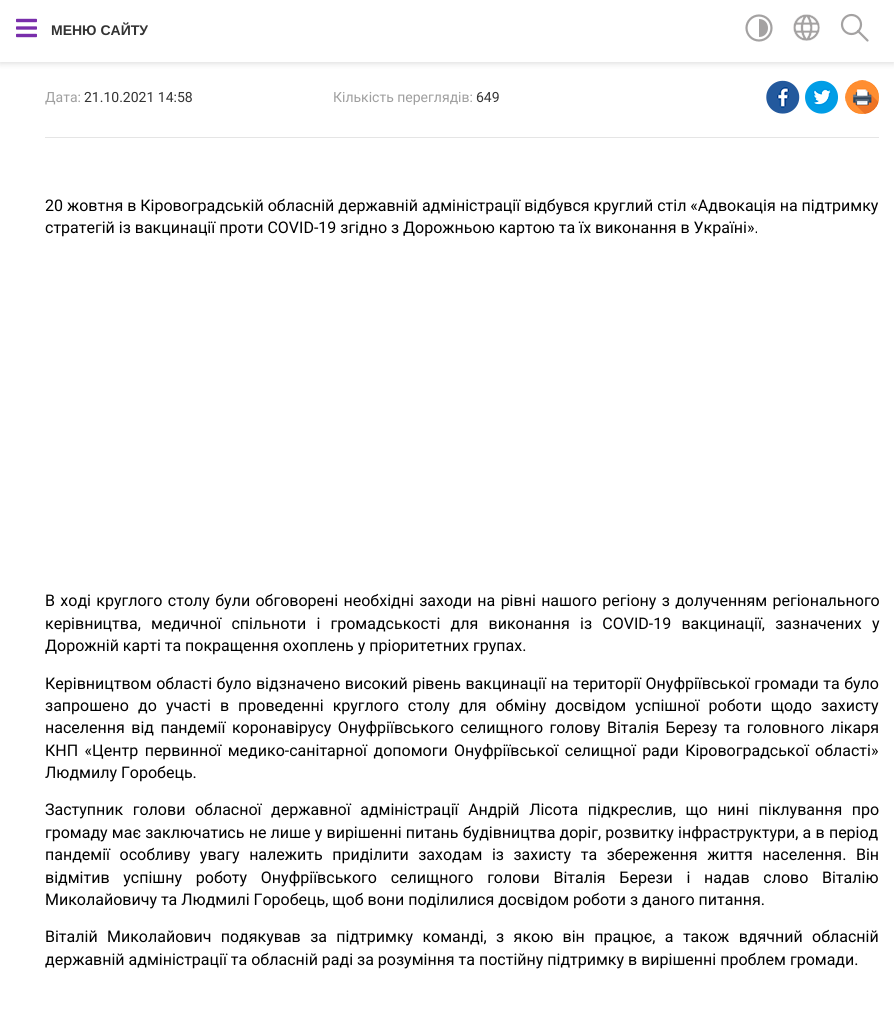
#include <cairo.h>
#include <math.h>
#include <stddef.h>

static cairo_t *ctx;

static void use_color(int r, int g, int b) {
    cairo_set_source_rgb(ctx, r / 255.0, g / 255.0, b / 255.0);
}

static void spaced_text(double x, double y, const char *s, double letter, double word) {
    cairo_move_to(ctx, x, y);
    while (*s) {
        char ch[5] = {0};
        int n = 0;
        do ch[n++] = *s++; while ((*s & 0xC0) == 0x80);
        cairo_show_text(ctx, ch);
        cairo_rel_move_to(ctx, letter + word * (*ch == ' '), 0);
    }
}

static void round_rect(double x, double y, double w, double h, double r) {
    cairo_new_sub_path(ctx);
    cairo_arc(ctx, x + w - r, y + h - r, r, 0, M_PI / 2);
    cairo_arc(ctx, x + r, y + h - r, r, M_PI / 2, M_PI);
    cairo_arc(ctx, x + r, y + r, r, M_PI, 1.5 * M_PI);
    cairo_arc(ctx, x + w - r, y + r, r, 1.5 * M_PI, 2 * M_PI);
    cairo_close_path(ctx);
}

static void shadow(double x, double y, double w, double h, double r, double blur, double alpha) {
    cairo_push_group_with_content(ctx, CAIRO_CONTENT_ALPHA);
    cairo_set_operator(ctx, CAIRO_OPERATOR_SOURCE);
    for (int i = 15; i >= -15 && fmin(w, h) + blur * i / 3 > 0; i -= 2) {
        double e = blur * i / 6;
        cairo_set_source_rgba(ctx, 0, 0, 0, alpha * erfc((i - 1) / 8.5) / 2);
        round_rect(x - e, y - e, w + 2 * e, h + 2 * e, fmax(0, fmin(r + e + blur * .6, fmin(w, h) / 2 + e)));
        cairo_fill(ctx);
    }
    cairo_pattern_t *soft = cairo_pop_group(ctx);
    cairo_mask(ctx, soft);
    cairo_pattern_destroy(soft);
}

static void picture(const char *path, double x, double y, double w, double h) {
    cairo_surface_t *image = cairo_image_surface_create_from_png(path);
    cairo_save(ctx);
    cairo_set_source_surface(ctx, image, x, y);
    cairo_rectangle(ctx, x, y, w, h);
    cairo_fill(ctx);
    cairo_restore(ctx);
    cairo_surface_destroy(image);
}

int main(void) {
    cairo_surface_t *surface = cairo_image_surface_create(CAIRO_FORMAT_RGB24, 894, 1023);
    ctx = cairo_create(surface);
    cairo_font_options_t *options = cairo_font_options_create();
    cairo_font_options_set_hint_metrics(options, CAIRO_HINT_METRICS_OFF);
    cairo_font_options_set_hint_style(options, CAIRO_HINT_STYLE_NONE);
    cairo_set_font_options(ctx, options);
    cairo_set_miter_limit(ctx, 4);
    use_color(255, 255, 255);
    cairo_paint(ctx);
    use_color(0, 0, 0);
    shadow(0, 1, 894, 62, 0, 3.5, 0.15);
    use_color(255, 255, 255);
    cairo_rectangle(ctx, 0, 0, 894, 62);
    cairo_fill(ctx);
    picture("img1.png", 16, 18, 21, 20);
    cairo_select_font_face(ctx, "Liberation Sans", CAIRO_FONT_SLANT_NORMAL, CAIRO_FONT_WEIGHT_BOLD);
    cairo_set_font_size(ctx, 14);
    use_color(51, 51, 51);
    cairo_move_to(ctx, 51, 35);
    cairo_show_text(ctx, "МЕНЮ САЙТУ");
    cairo_new_path(ctx);
    cairo_arc(ctx, 759, 28, 12.5, 0, 2 * M_PI);
    use_color(164, 162, 162);
    cairo_set_line_width(ctx, 2.2);
    cairo_stroke(ctx);
    cairo_set_fill_rule(ctx, CAIRO_FILL_RULE_EVEN_ODD);
    cairo_new_path(ctx);
    cairo_move_to(ctx, 759, 19);
    cairo_curve_to(ctx, 771, 19, 771, 37, 759, 37);
    cairo_close_path(ctx);
    cairo_fill(ctx);
    picture("img2.png", 793, 14, 27, 27);
    cairo_arc(ctx, 851.5, 24.5, 9.5, 0, 2 * M_PI);
    cairo_stroke(ctx);
    cairo_new_path(ctx);
    cairo_move_to(ctx, 858, 31);
    cairo_line_to(ctx, 867.5, 40.5);
    cairo_set_line_cap(ctx, CAIRO_LINE_CAP_ROUND);
    cairo_set_line_join(ctx, CAIRO_LINE_JOIN_ROUND);
    cairo_stroke(ctx);
    cairo_select_font_face(ctx, "Roboto", CAIRO_FONT_SLANT_NORMAL, CAIRO_FONT_WEIGHT_NORMAL);
    use_color(159, 159, 159);
    cairo_move_to(ctx, 45, 102);
    cairo_show_text(ctx, "Дата:");
    use_color(51, 51, 51);
    cairo_move_to(ctx, 84, 102);
    cairo_show_text(ctx, "21.10.2021 14:58");
    use_color(159, 159, 159);
    cairo_move_to(ctx, 333, 102);
    cairo_show_text(ctx, "Кількість переглядів:");
    use_color(51, 51, 51);
    cairo_move_to(ctx, 476, 102);
    cairo_show_text(ctx, "649");
    picture("img3.png", 766, 80, 34, 34);
    picture("img4.png", 805, 80, 33, 34);
    picture("img5.png", 845, 80, 34, 34);
    use_color(229, 229, 229);
    cairo_rectangle(ctx, 45, 137, 834, 1);
    cairo_fill(ctx);
    cairo_set_font_size(ctx, 16);
    use_color(0, 0, 0);
    cairo_move_to(ctx, 45, 211);
    cairo_show_text(ctx, "20 жовтня в Кіровоградській обласній державній адміністрації відбувся круглий стіл «Адвокація на підтримку");
    cairo_move_to(ctx, 45, 233);
    cairo_show_text(ctx, "стратегій із вакцинації проти СOVID-19 згідно з Дорожньою картою та їх виконання в Україні».");
    spaced_text(45, 606, "В ході круглого столу були обговорені необхідні заходи на рівні нашого регіону з долученням регіонального", 0, 1.4);
    spaced_text(45, 629, "керівництва, медичної спільноти і громадськості для виконання із СOVID-19 вакцинації, зазначених у", 0, 6.25);
    cairo_move_to(ctx, 45, 651);
    cairo_show_text(ctx, "Дорожній карті та покращення охоплень у пріоритетних групах.");
    spaced_text(45, 689, "Керівництвом області було відзначено високий рівень вакцинації на території Онуфріївської громади та було", 0, 0.6);
    spaced_text(45, 711, "запрошено до участі в проведенні круглого столу для обміну досвідом успішної роботи щодо захисту", 0, 5.1);
    spaced_text(45, 733, "населення від пандемії коронавірусу Онуфріївського селищного голову Віталія Березу та головного лікаря", 0, 2.5);
    spaced_text(45, 756, "КНП «Центр первинної медико-санітарної допомоги Онуфріївської селищної ради Кіровоградської області»", 0, 2.5);
    cairo_move_to(ctx, 45, 778);
    cairo_show_text(ctx, "Людмилу Горобець.");
    spaced_text(45, 815, "Заступник голови обласної державної адміністрації Андрій Лісота підкреслив, що нині піклування про", 0, 5.6);
    spaced_text(45, 838, "громаду має заключатись не лише у вирішенні питань будівництва доріг, розвитку інфраструктури, а в період", 0, 0.25);
    spaced_text(45, 860, "пандемії особливу увагу належить приділити заходам із захисту та збереження життя населення. Він", 0, 5.6);
    spaced_text(45, 883, "відмітив успішну роботу Онуфріївського селищного голови Віталія Берези і надав слово Віталію", 0, 9.75);
    cairo_move_to(ctx, 45, 905);
    cairo_show_text(ctx, "Миколайовичу та Людмилі Горобець, щоб вони поділилися досвідом роботи з даного питання.");
    spaced_text(45, 942, "Віталій Миколайович подякував за підтримку команді, з якою він працює, а також вдячний обласній", 0, 5.4);
    cairo_move_to(ctx, 45, 965);
    cairo_show_text(ctx, "державній адміністрації та обласній раді за розуміння та постійну підтримку в вирішенні проблем громади.");
    cairo_surface_write_to_png(surface, "result.png");
    cairo_font_options_destroy(options);
    cairo_destroy(ctx);
    cairo_surface_destroy(surface);
    return 0;
}
